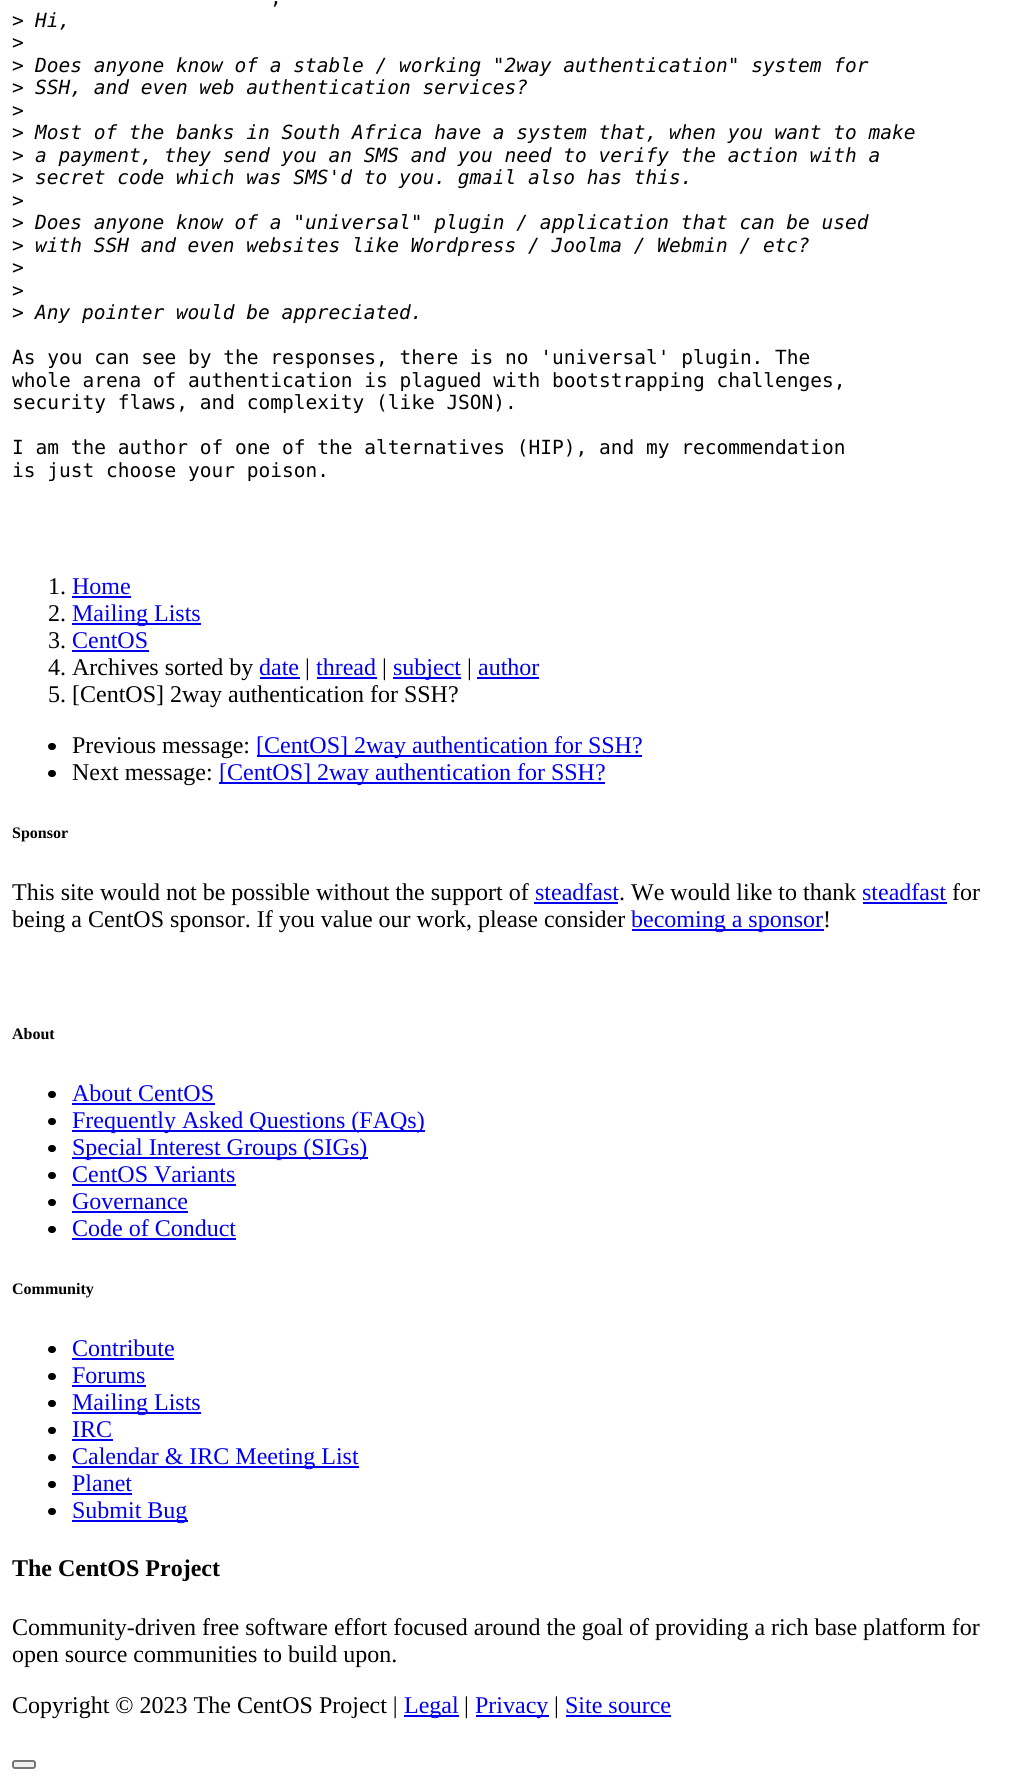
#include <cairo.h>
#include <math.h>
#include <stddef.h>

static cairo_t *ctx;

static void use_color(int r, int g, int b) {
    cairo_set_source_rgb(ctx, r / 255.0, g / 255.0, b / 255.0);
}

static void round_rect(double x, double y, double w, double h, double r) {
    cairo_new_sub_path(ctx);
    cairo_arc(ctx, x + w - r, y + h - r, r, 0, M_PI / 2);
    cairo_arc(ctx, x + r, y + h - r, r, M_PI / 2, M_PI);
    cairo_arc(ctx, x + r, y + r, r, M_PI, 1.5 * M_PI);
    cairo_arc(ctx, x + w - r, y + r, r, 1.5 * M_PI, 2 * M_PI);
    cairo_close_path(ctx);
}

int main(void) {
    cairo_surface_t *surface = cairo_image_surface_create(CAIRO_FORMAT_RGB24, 1015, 1782);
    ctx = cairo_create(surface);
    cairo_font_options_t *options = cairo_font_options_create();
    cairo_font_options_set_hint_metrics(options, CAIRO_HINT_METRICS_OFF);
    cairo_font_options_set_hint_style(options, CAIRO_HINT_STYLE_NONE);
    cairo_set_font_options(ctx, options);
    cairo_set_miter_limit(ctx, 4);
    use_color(255, 255, 255);
    cairo_paint(ctx);
    cairo_select_font_face(ctx, "DejaVu Sans Mono", CAIRO_FONT_SLANT_NORMAL, CAIRO_FONT_WEIGHT_NORMAL);
    cairo_set_font_size(ctx, 19.5);
    use_color(0, 0, 0);
    cairo_move_to(ctx, 270, 4);
    cairo_show_text(ctx, ",");
    cairo_move_to(ctx, 12, 27);
    cairo_show_text(ctx, ">");
    cairo_select_font_face(ctx, "DejaVu Sans Mono", CAIRO_FONT_SLANT_ITALIC, CAIRO_FONT_WEIGHT_NORMAL);
    cairo_move_to(ctx, 35, 27);
    cairo_show_text(ctx, "Hi,");
    cairo_select_font_face(ctx, "DejaVu Sans Mono", CAIRO_FONT_SLANT_NORMAL, CAIRO_FONT_WEIGHT_NORMAL);
    cairo_move_to(ctx, 12, 49);
    cairo_show_text(ctx, ">");
    cairo_move_to(ctx, 12, 72);
    cairo_show_text(ctx, ">");
    cairo_select_font_face(ctx, "DejaVu Sans Mono", CAIRO_FONT_SLANT_ITALIC, CAIRO_FONT_WEIGHT_NORMAL);
    cairo_move_to(ctx, 35, 72);
    cairo_show_text(ctx, "Does anyone know of a stable / working \"2way authentication\" system for");
    cairo_select_font_face(ctx, "DejaVu Sans Mono", CAIRO_FONT_SLANT_NORMAL, CAIRO_FONT_WEIGHT_NORMAL);
    cairo_move_to(ctx, 12, 94);
    cairo_show_text(ctx, ">");
    cairo_select_font_face(ctx, "DejaVu Sans Mono", CAIRO_FONT_SLANT_ITALIC, CAIRO_FONT_WEIGHT_NORMAL);
    cairo_move_to(ctx, 35, 94);
    cairo_show_text(ctx, "SSH, and even web authentication services?");
    cairo_select_font_face(ctx, "DejaVu Sans Mono", CAIRO_FONT_SLANT_NORMAL, CAIRO_FONT_WEIGHT_NORMAL);
    cairo_move_to(ctx, 12, 117);
    cairo_show_text(ctx, ">");
    cairo_move_to(ctx, 12, 139);
    cairo_show_text(ctx, ">");
    cairo_select_font_face(ctx, "DejaVu Sans Mono", CAIRO_FONT_SLANT_ITALIC, CAIRO_FONT_WEIGHT_NORMAL);
    cairo_move_to(ctx, 35, 139);
    cairo_show_text(ctx, "Most of the banks in South Africa have a system that, when you want to make");
    cairo_select_font_face(ctx, "DejaVu Sans Mono", CAIRO_FONT_SLANT_NORMAL, CAIRO_FONT_WEIGHT_NORMAL);
    cairo_move_to(ctx, 12, 162);
    cairo_show_text(ctx, ">");
    cairo_select_font_face(ctx, "DejaVu Sans Mono", CAIRO_FONT_SLANT_ITALIC, CAIRO_FONT_WEIGHT_NORMAL);
    cairo_move_to(ctx, 35, 162);
    cairo_show_text(ctx, "a payment, they send you an SMS and you need to verify the action with a");
    cairo_select_font_face(ctx, "DejaVu Sans Mono", CAIRO_FONT_SLANT_NORMAL, CAIRO_FONT_WEIGHT_NORMAL);
    cairo_move_to(ctx, 12, 184);
    cairo_show_text(ctx, ">");
    cairo_select_font_face(ctx, "DejaVu Sans Mono", CAIRO_FONT_SLANT_ITALIC, CAIRO_FONT_WEIGHT_NORMAL);
    cairo_move_to(ctx, 35, 184);
    cairo_show_text(ctx, "secret code which was SMS'd to you. gmail also has this.");
    cairo_select_font_face(ctx, "DejaVu Sans Mono", CAIRO_FONT_SLANT_NORMAL, CAIRO_FONT_WEIGHT_NORMAL);
    cairo_move_to(ctx, 12, 207);
    cairo_show_text(ctx, ">");
    cairo_move_to(ctx, 12, 229);
    cairo_show_text(ctx, ">");
    cairo_select_font_face(ctx, "DejaVu Sans Mono", CAIRO_FONT_SLANT_ITALIC, CAIRO_FONT_WEIGHT_NORMAL);
    cairo_move_to(ctx, 35, 229);
    cairo_show_text(ctx, "Does anyone know of a \"universal\" plugin / application that can be used");
    cairo_select_font_face(ctx, "DejaVu Sans Mono", CAIRO_FONT_SLANT_NORMAL, CAIRO_FONT_WEIGHT_NORMAL);
    cairo_move_to(ctx, 12, 252);
    cairo_show_text(ctx, ">");
    cairo_select_font_face(ctx, "DejaVu Sans Mono", CAIRO_FONT_SLANT_ITALIC, CAIRO_FONT_WEIGHT_NORMAL);
    cairo_move_to(ctx, 35, 252);
    cairo_show_text(ctx, "with SSH and even websites like Wordpress / Joolma / Webmin / etc?");
    cairo_select_font_face(ctx, "DejaVu Sans Mono", CAIRO_FONT_SLANT_NORMAL, CAIRO_FONT_WEIGHT_NORMAL);
    cairo_move_to(ctx, 12, 274);
    cairo_show_text(ctx, ">");
    cairo_move_to(ctx, 12, 297);
    cairo_show_text(ctx, ">");
    cairo_move_to(ctx, 12, 319);
    cairo_show_text(ctx, ">");
    cairo_select_font_face(ctx, "DejaVu Sans Mono", CAIRO_FONT_SLANT_ITALIC, CAIRO_FONT_WEIGHT_NORMAL);
    cairo_move_to(ctx, 35, 319);
    cairo_show_text(ctx, "Any pointer would be appreciated.");
    cairo_select_font_face(ctx, "DejaVu Sans Mono", CAIRO_FONT_SLANT_NORMAL, CAIRO_FONT_WEIGHT_NORMAL);
    cairo_move_to(ctx, 12, 364);
    cairo_show_text(ctx, "As you can see by the responses, there is no 'universal' plugin. The");
    cairo_move_to(ctx, 12, 387);
    cairo_show_text(ctx, "whole arena of authentication is plagued with bootstrapping challenges,");
    cairo_move_to(ctx, 12, 409);
    cairo_show_text(ctx, "security flaws, and complexity (like JSON).");
    cairo_move_to(ctx, 12, 454);
    cairo_show_text(ctx, "I am the author of one of the alternatives (HIP), and my recommendation");
    cairo_move_to(ctx, 12, 477);
    cairo_show_text(ctx, "is just choose your poison.");
    cairo_select_font_face(ctx, "Liberation Serif", CAIRO_FONT_SLANT_NORMAL, CAIRO_FONT_WEIGHT_NORMAL);
    cairo_set_font_size(ctx, 24);
    cairo_move_to(ctx, 48, 594);
    cairo_show_text(ctx, "1.");
    use_color(0, 0, 238);
    cairo_move_to(ctx, 72, 594);
    cairo_show_text(ctx, "Home");
    cairo_rectangle(ctx, 72, 596, 59, 2);
    cairo_fill(ctx);
    use_color(0, 0, 0);
    cairo_move_to(ctx, 48, 621);
    cairo_show_text(ctx, "2.");
    use_color(0, 0, 238);
    cairo_rectangle(ctx, 72, 623, 129, 2);
    cairo_fill(ctx);
    cairo_move_to(ctx, 72, 621);
    cairo_show_text(ctx, "Mailing Lists");
    use_color(0, 0, 0);
    cairo_move_to(ctx, 48, 648);
    cairo_show_text(ctx, "3.");
    use_color(0, 0, 238);
    cairo_move_to(ctx, 72, 648);
    cairo_show_text(ctx, "CentOS");
    cairo_rectangle(ctx, 72, 650, 77, 2);
    cairo_fill(ctx);
    use_color(0, 0, 0);
    cairo_move_to(ctx, 48, 675);
    cairo_show_text(ctx, "4. Archives sorted by");
    use_color(0, 0, 238);
    cairo_move_to(ctx, 259, 675);
    cairo_show_text(ctx, "date");
    cairo_rectangle(ctx, 260, 677, 40, 2);
    cairo_fill(ctx);
    use_color(0, 0, 0);
    cairo_move_to(ctx, 305, 675);
    cairo_show_text(ctx, "|");
    use_color(0, 0, 238);
    cairo_move_to(ctx, 316, 675);
    cairo_show_text(ctx, "thread");
    cairo_rectangle(ctx, 317, 677, 60, 2);
    cairo_fill(ctx);
    use_color(0, 0, 0);
    cairo_move_to(ctx, 382, 675);
    cairo_show_text(ctx, "|");
    use_color(0, 0, 238);
    cairo_rectangle(ctx, 393, 677, 68, 2);
    cairo_fill(ctx);
    cairo_move_to(ctx, 393, 675);
    cairo_show_text(ctx, "subject");
    use_color(0, 0, 0);
    cairo_move_to(ctx, 467, 675);
    cairo_show_text(ctx, "|");
    use_color(0, 0, 238);
    cairo_move_to(ctx, 478, 675);
    cairo_show_text(ctx, "author");
    cairo_rectangle(ctx, 477, 677, 62, 2);
    cairo_fill(ctx);
    use_color(0, 0, 0);
    cairo_move_to(ctx, 48, 702);
    cairo_show_text(ctx, "5. [CentOS] 2way authentication for SSH?");
    round_rect(48, 743, 8, 7, 3.5);
    cairo_fill(ctx);
    cairo_move_to(ctx, 72, 753);
    cairo_show_text(ctx, "Previous message:");
    use_color(0, 0, 238);
    cairo_rectangle(ctx, 257, 755, 385, 2);
    cairo_fill(ctx);
    cairo_move_to(ctx, 256, 753);
    cairo_show_text(ctx, "[CentOS] 2way authentication for SSH?");
    use_color(0, 0, 0);
    round_rect(48, 770, 8, 7, 3.5);
    cairo_fill(ctx);
    cairo_move_to(ctx, 72, 780);
    cairo_show_text(ctx, "Next message:");
    use_color(0, 0, 238);
    cairo_rectangle(ctx, 219, 782, 386, 2);
    cairo_fill(ctx);
    cairo_move_to(ctx, 219, 780);
    cairo_show_text(ctx, "[CentOS] 2way authentication for SSH?");
    cairo_select_font_face(ctx, "Liberation Serif", CAIRO_FONT_SLANT_NORMAL, CAIRO_FONT_WEIGHT_BOLD);
    cairo_set_font_size(ctx, 16);
    use_color(0, 0, 0);
    cairo_move_to(ctx, 12, 838);
    cairo_show_text(ctx, "Sponsor");
    cairo_select_font_face(ctx, "Liberation Serif", CAIRO_FONT_SLANT_NORMAL, CAIRO_FONT_WEIGHT_NORMAL);
    cairo_set_font_size(ctx, 24);
    cairo_move_to(ctx, 12, 900);
    cairo_show_text(ctx, "This site would not be possible without the support of");
    use_color(0, 0, 238);
    cairo_move_to(ctx, 535, 900);
    cairo_show_text(ctx, "steadfast");
    cairo_rectangle(ctx, 534, 902, 84, 2);
    cairo_fill(ctx);
    use_color(0, 0, 0);
    cairo_move_to(ctx, 619, 900);
    cairo_show_text(ctx, ". We would like to thank");
    use_color(0, 0, 238);
    cairo_move_to(ctx, 862, 900);
    cairo_show_text(ctx, "steadfast");
    cairo_rectangle(ctx, 863, 902, 84, 2);
    cairo_fill(ctx);
    use_color(0, 0, 0);
    cairo_move_to(ctx, 952, 900);
    cairo_show_text(ctx, "for");
    cairo_move_to(ctx, 12, 927);
    cairo_show_text(ctx, "being a CentOS sponsor. If you value our work, please consider");
    use_color(0, 0, 238);
    cairo_rectangle(ctx, 632, 929, 192, 2);
    cairo_fill(ctx);
    cairo_move_to(ctx, 631, 927);
    cairo_show_text(ctx, "becoming a sponsor");
    use_color(0, 0, 0);
    cairo_move_to(ctx, 823, 927);
    cairo_show_text(ctx, "!");
    cairo_select_font_face(ctx, "Liberation Serif", CAIRO_FONT_SLANT_NORMAL, CAIRO_FONT_WEIGHT_BOLD);
    cairo_set_font_size(ctx, 16);
    cairo_move_to(ctx, 12, 1039);
    cairo_show_text(ctx, "About");
    round_rect(48, 1091, 8, 7, 3.5);
    cairo_fill(ctx);
    cairo_select_font_face(ctx, "Liberation Serif", CAIRO_FONT_SLANT_NORMAL, CAIRO_FONT_WEIGHT_NORMAL);
    cairo_set_font_size(ctx, 24);
    use_color(0, 0, 238);
    cairo_move_to(ctx, 72, 1101);
    cairo_show_text(ctx, "About CentOS");
    cairo_rectangle(ctx, 72, 1103, 143, 2);
    cairo_fill(ctx);
    use_color(0, 0, 0);
    round_rect(48, 1118, 8, 7, 3.5);
    cairo_fill(ctx);
    use_color(0, 0, 238);
    cairo_rectangle(ctx, 72, 1130, 353, 2);
    cairo_fill(ctx);
    cairo_move_to(ctx, 72, 1128);
    cairo_show_text(ctx, "Frequently Asked Questions (FAQs)");
    use_color(0, 0, 0);
    round_rect(48, 1145, 8, 7, 3.5);
    cairo_fill(ctx);
    use_color(0, 0, 238);
    cairo_rectangle(ctx, 72, 1157, 296, 2);
    cairo_fill(ctx);
    cairo_move_to(ctx, 72, 1155);
    cairo_show_text(ctx, "Special Interest Groups (SIGs)");
    use_color(0, 0, 0);
    round_rect(48, 1172, 8, 7, 3.5);
    cairo_fill(ctx);
    use_color(0, 0, 238);
    cairo_move_to(ctx, 72, 1182);
    cairo_show_text(ctx, "CentOS Variants");
    cairo_rectangle(ctx, 72, 1184, 164, 2);
    cairo_fill(ctx);
    use_color(0, 0, 0);
    round_rect(48, 1199, 8, 7, 3.5);
    cairo_fill(ctx);
    use_color(0, 0, 238);
    cairo_move_to(ctx, 72, 1209);
    cairo_show_text(ctx, "Governance");
    cairo_rectangle(ctx, 72, 1211, 116, 2);
    cairo_fill(ctx);
    use_color(0, 0, 0);
    round_rect(48, 1226, 8, 7, 3.5);
    cairo_fill(ctx);
    use_color(0, 0, 238);
    cairo_move_to(ctx, 72, 1236);
    cairo_show_text(ctx, "Code of Conduct");
    cairo_rectangle(ctx, 72, 1238, 164, 2);
    cairo_fill(ctx);
    cairo_select_font_face(ctx, "Liberation Serif", CAIRO_FONT_SLANT_NORMAL, CAIRO_FONT_WEIGHT_BOLD);
    cairo_set_font_size(ctx, 16);
    use_color(0, 0, 0);
    cairo_move_to(ctx, 12, 1294);
    cairo_show_text(ctx, "Community");
    round_rect(48, 1346, 8, 7, 3.5);
    cairo_fill(ctx);
    cairo_select_font_face(ctx, "Liberation Serif", CAIRO_FONT_SLANT_NORMAL, CAIRO_FONT_WEIGHT_NORMAL);
    cairo_set_font_size(ctx, 24);
    use_color(0, 0, 238);
    cairo_move_to(ctx, 72, 1356);
    cairo_show_text(ctx, "Contribute");
    cairo_rectangle(ctx, 72, 1358, 102, 2);
    cairo_fill(ctx);
    use_color(0, 0, 0);
    round_rect(48, 1373, 8, 7, 3.5);
    cairo_fill(ctx);
    use_color(0, 0, 238);
    cairo_move_to(ctx, 72, 1383);
    cairo_show_text(ctx, "Forums");
    cairo_rectangle(ctx, 72, 1385, 74, 2);
    cairo_fill(ctx);
    use_color(0, 0, 0);
    round_rect(48, 1400, 8, 7, 3.5);
    cairo_fill(ctx);
    use_color(0, 0, 238);
    cairo_rectangle(ctx, 72, 1412, 129, 2);
    cairo_fill(ctx);
    cairo_move_to(ctx, 72, 1410);
    cairo_show_text(ctx, "Mailing Lists");
    use_color(0, 0, 0);
    round_rect(48, 1427, 8, 7, 3.5);
    cairo_fill(ctx);
    use_color(0, 0, 238);
    cairo_move_to(ctx, 72, 1437);
    cairo_show_text(ctx, "IRC");
    cairo_rectangle(ctx, 72, 1439, 41, 2);
    cairo_fill(ctx);
    use_color(0, 0, 0);
    round_rect(48, 1454, 8, 7, 3.5);
    cairo_fill(ctx);
    use_color(0, 0, 238);
    cairo_rectangle(ctx, 72, 1466, 287, 2);
    cairo_fill(ctx);
    cairo_move_to(ctx, 72, 1464);
    cairo_show_text(ctx, "Calendar & IRC Meeting List");
    use_color(0, 0, 0);
    round_rect(48, 1481, 8, 7, 3.5);
    cairo_fill(ctx);
    use_color(0, 0, 238);
    cairo_move_to(ctx, 72, 1491);
    cairo_show_text(ctx, "Planet");
    cairo_rectangle(ctx, 72, 1493, 60, 2);
    cairo_fill(ctx);
    use_color(0, 0, 0);
    round_rect(48, 1508, 8, 7, 3.5);
    cairo_fill(ctx);
    use_color(0, 0, 238);
    cairo_rectangle(ctx, 72, 1520, 116, 2);
    cairo_fill(ctx);
    cairo_move_to(ctx, 72, 1518);
    cairo_show_text(ctx, "Submit Bug");
    cairo_select_font_face(ctx, "Liberation Serif", CAIRO_FONT_SLANT_NORMAL, CAIRO_FONT_WEIGHT_BOLD);
    use_color(0, 0, 0);
    cairo_move_to(ctx, 12, 1576);
    cairo_show_text(ctx, "The CentOS Project");
    cairo_select_font_face(ctx, "Liberation Serif", CAIRO_FONT_SLANT_NORMAL, CAIRO_FONT_WEIGHT_NORMAL);
    cairo_move_to(ctx, 12, 1635);
    cairo_show_text(ctx, "Community-driven free software effort focused around the goal of providing a rich base platform for");
    cairo_move_to(ctx, 12, 1662);
    cairo_show_text(ctx, "open source communities to build upon.");
    cairo_move_to(ctx, 12, 1713);
    cairo_show_text(ctx, "Copyright © 2023 The CentOS Project |");
    use_color(0, 0, 238);
    cairo_rectangle(ctx, 404, 1715, 55, 2);
    cairo_fill(ctx);
    cairo_move_to(ctx, 404, 1713);
    cairo_show_text(ctx, "Legal");
    use_color(0, 0, 0);
    cairo_move_to(ctx, 464, 1713);
    cairo_show_text(ctx, "|");
    use_color(0, 0, 238);
    cairo_rectangle(ctx, 476, 1715, 73, 2);
    cairo_fill(ctx);
    cairo_move_to(ctx, 475, 1713);
    cairo_show_text(ctx, "Privacy");
    use_color(0, 0, 0);
    cairo_move_to(ctx, 554, 1713);
    cairo_show_text(ctx, "|");
    use_color(0, 0, 238);
    cairo_move_to(ctx, 565, 1713);
    cairo_show_text(ctx, "Site source");
    cairo_rectangle(ctx, 566, 1715, 105, 2);
    cairo_fill(ctx);
    use_color(239, 239, 239);
    round_rect(13, 1761, 22, 7, 2);
    cairo_fill_preserve(ctx);
    use_color(118, 118, 118);
    cairo_stroke(ctx);
    cairo_surface_write_to_png(surface, "result.png");
    cairo_font_options_destroy(options);
    cairo_destroy(ctx);
    cairo_surface_destroy(surface);
    return 0;
}
